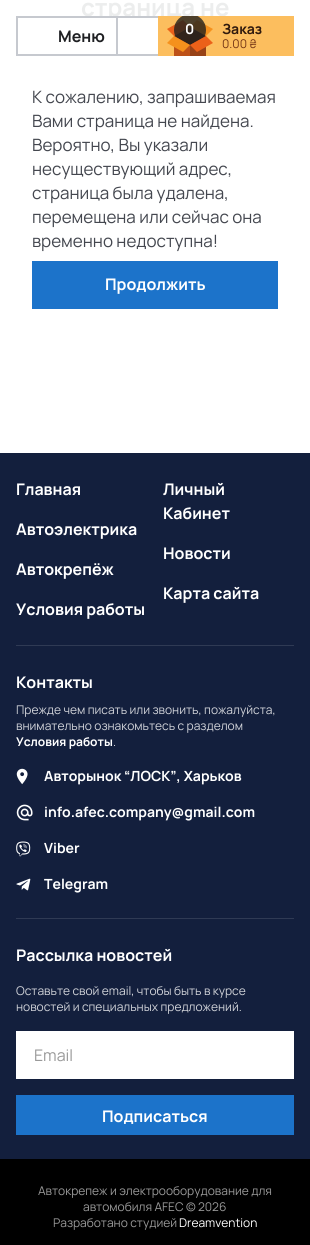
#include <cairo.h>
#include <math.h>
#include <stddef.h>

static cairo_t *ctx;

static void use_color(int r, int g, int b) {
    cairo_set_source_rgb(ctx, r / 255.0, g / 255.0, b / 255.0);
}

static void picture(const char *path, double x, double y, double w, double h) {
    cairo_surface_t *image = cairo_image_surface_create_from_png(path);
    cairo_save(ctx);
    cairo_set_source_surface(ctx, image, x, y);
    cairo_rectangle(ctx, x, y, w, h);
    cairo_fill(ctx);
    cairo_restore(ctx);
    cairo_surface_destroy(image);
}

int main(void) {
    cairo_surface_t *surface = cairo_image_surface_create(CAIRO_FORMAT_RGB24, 310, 1245);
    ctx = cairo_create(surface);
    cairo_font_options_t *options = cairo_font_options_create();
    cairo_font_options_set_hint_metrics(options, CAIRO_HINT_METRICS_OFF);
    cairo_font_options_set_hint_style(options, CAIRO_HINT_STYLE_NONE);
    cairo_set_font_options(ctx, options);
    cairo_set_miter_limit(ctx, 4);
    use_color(255, 255, 255);
    cairo_paint(ctx);
    cairo_select_font_face(ctx, "Manrope", CAIRO_FONT_SLANT_NORMAL, CAIRO_FONT_WEIGHT_BOLD);
    cairo_set_font_size(ctx, 24);
    use_color(236, 237, 237);
    cairo_move_to(ctx, 81, 16);
    cairo_show_text(ctx, "страница не");
    cairo_select_font_face(ctx, "Manrope", CAIRO_FONT_SLANT_NORMAL, CAIRO_FONT_WEIGHT_NORMAL);
    cairo_set_font_size(ctx, 17);
    use_color(68, 71, 79);
    cairo_move_to(ctx, 32, 103);
    cairo_show_text(ctx, "К сожалению, запрашиваемая");
    cairo_move_to(ctx, 32, 127);
    cairo_show_text(ctx, "Вами страница не найдена.");
    cairo_move_to(ctx, 32, 151);
    cairo_show_text(ctx, "Вероятно, Вы указали");
    cairo_move_to(ctx, 32, 175);
    cairo_show_text(ctx, "несуществующий адрес,");
    cairo_move_to(ctx, 32, 199);
    cairo_show_text(ctx, "страница была удалена,");
    cairo_move_to(ctx, 32, 223);
    cairo_show_text(ctx, "перемещена или сейчас она");
    cairo_move_to(ctx, 32, 247);
    cairo_show_text(ctx, "временно недоступна!");
    use_color(28, 115, 202);
    cairo_rectangle(ctx, 32, 261, 246, 48);
    cairo_fill(ctx);
    cairo_select_font_face(ctx, "Manrope", CAIRO_FONT_SLANT_NORMAL, CAIRO_FONT_WEIGHT_BOLD);
    cairo_set_font_size(ctx, 16);
    use_color(255, 255, 255);
    cairo_move_to(ctx, 105, 290);
    cairo_show_text(ctx, "Продолжить");
    cairo_rectangle(ctx, 109, 18, 3, 4);
    cairo_fill(ctx);
    cairo_rectangle(ctx, 17, 17, 142, 38);
    use_color(198, 201, 207);
    cairo_stroke(ctx);
    cairo_rectangle(ctx, 116, 18, 2, 36);
    cairo_fill(ctx);
    use_color(30, 31, 34);
    cairo_move_to(ctx, 58, 42);
    cairo_show_text(ctx, "Меню");
    use_color(252, 190, 94);
    cairo_rectangle(ctx, 158, 16, 136, 40);
    cairo_fill(ctx);
    picture("img1.png", 167, 16, 46, 40);
    cairo_set_font_size(ctx, 14);
    use_color(255, 255, 255);
    cairo_move_to(ctx, 185, 34);
    cairo_show_text(ctx, "0");
    use_color(48, 26, 13);
    cairo_move_to(ctx, 222, 34);
    cairo_show_text(ctx, "Заказ");
    cairo_select_font_face(ctx, "Manrope", CAIRO_FONT_SLANT_NORMAL, CAIRO_FONT_WEIGHT_NORMAL);
    cairo_set_font_size(ctx, 12);
    use_color(116, 53, 21);
    cairo_move_to(ctx, 222, 48);
    cairo_show_text(ctx, "0.00 ₴");
    use_color(19, 31, 61);
    cairo_rectangle(ctx, 0, 453, 310, 706);
    cairo_fill(ctx);
    use_color(47, 58, 84);
    cairo_rectangle(ctx, 16, 645, 278, 1);
    cairo_fill(ctx);
    cairo_select_font_face(ctx, "Manrope", CAIRO_FONT_SLANT_NORMAL, CAIRO_FONT_WEIGHT_BOLD);
    cairo_set_font_size(ctx, 16);
    use_color(255, 255, 255);
    cairo_move_to(ctx, 16, 495);
    cairo_show_text(ctx, "Главная");
    cairo_move_to(ctx, 16, 535);
    cairo_show_text(ctx, "Автоэлектрика");
    cairo_move_to(ctx, 16, 575);
    cairo_show_text(ctx, "Автокрепёж");
    cairo_move_to(ctx, 16, 615);
    cairo_show_text(ctx, "Условия работы");
    cairo_move_to(ctx, 163, 495);
    cairo_show_text(ctx, "Личный");
    cairo_move_to(ctx, 163, 519);
    cairo_show_text(ctx, "Кабинет");
    cairo_move_to(ctx, 163, 559);
    cairo_show_text(ctx, "Новости");
    cairo_move_to(ctx, 163, 599);
    cairo_show_text(ctx, "Карта сайта");
    use_color(47, 58, 84);
    cairo_rectangle(ctx, 16, 918, 278, 1);
    cairo_fill(ctx);
    use_color(255, 255, 255);
    cairo_move_to(ctx, 16, 688);
    cairo_show_text(ctx, "Контакты");
    cairo_select_font_face(ctx, "Manrope", CAIRO_FONT_SLANT_NORMAL, CAIRO_FONT_WEIGHT_NORMAL);
    cairo_set_font_size(ctx, 12);
    use_color(208, 210, 216);
    cairo_move_to(ctx, 16, 714);
    cairo_show_text(ctx, "Прежде чем писать или звонить, пожалуйста,");
    cairo_move_to(ctx, 16, 730);
    cairo_show_text(ctx, "внимательно ознакомьтесь с разделом");
    cairo_select_font_face(ctx, "Manrope", CAIRO_FONT_SLANT_NORMAL, CAIRO_FONT_WEIGHT_BOLD);
    use_color(255, 255, 255);
    cairo_move_to(ctx, 16, 746);
    cairo_show_text(ctx, "Условия работы");
    cairo_select_font_face(ctx, "Manrope", CAIRO_FONT_SLANT_NORMAL, CAIRO_FONT_WEIGHT_NORMAL);
    use_color(208, 210, 216);
    cairo_move_to(ctx, 113, 746);
    cairo_show_text(ctx, ".");
    picture("img2.png", 16, 768, 12, 17);
    cairo_select_font_face(ctx, "Manrope", CAIRO_FONT_SLANT_NORMAL, CAIRO_FONT_WEIGHT_BOLD);
    cairo_set_font_size(ctx, 14);
    use_color(255, 255, 255);
    cairo_move_to(ctx, 44, 781);
    cairo_show_text(ctx, "Авторынок “ЛОСК”, Харьков");
    picture("img3.png", 16, 804, 17, 17);
    cairo_move_to(ctx, 44, 817);
    cairo_show_text(ctx, "info.afec.company@gmail.com");
    picture("img4.png", 16, 841, 15, 16);
    cairo_move_to(ctx, 44, 853);
    cairo_show_text(ctx, "Viber");
    picture("img5.png", 16, 878, 15, 13);
    cairo_move_to(ctx, 44, 889);
    cairo_show_text(ctx, "Telegram");
    cairo_set_font_size(ctx, 16);
    cairo_move_to(ctx, 16, 961);
    cairo_show_text(ctx, "Рассылка новостей");
    cairo_select_font_face(ctx, "Manrope", CAIRO_FONT_SLANT_NORMAL, CAIRO_FONT_WEIGHT_NORMAL);
    cairo_set_font_size(ctx, 12);
    use_color(208, 210, 216);
    cairo_move_to(ctx, 16, 995);
    cairo_show_text(ctx, "Оставьте свой email, чтобы быть в курсе");
    cairo_move_to(ctx, 16, 1011);
    cairo_show_text(ctx, "новостей и специальных предложений.");
    use_color(255, 255, 255);
    cairo_rectangle(ctx, 16, 1031, 278, 48);
    cairo_fill(ctx);
    cairo_set_font_size(ctx, 16);
    use_color(153, 153, 153);
    cairo_move_to(ctx, 34, 1061);
    cairo_show_text(ctx, "Email");
    use_color(28, 115, 202);
    cairo_rectangle(ctx, 16, 1095, 278, 40);
    cairo_fill(ctx);
    cairo_select_font_face(ctx, "Manrope", CAIRO_FONT_SLANT_NORMAL, CAIRO_FONT_WEIGHT_BOLD);
    use_color(255, 255, 255);
    cairo_move_to(ctx, 102, 1122);
    cairo_show_text(ctx, "Подписаться");
    use_color(0, 0, 0);
    cairo_rectangle(ctx, 0, 1159, 310, 86);
    cairo_fill(ctx);
    cairo_select_font_face(ctx, "Manrope", CAIRO_FONT_SLANT_NORMAL, CAIRO_FONT_WEIGHT_NORMAL);
    cairo_set_font_size(ctx, 12);
    use_color(153, 153, 153);
    cairo_move_to(ctx, 38, 1195);
    cairo_show_text(ctx, "Автокрепеж и электрооборудование для");
    cairo_move_to(ctx, 83, 1211);
    cairo_show_text(ctx, "автомобиля AFEC © 2026");
    cairo_move_to(ctx, 53, 1227);
    cairo_show_text(ctx, "Разработано студией");
    use_color(255, 255, 255);
    cairo_move_to(ctx, 179, 1227);
    cairo_show_text(ctx, "Dreamvention");
    cairo_surface_write_to_png(surface, "result.png");
    cairo_font_options_destroy(options);
    cairo_destroy(ctx);
    cairo_surface_destroy(surface);
    return 0;
}
